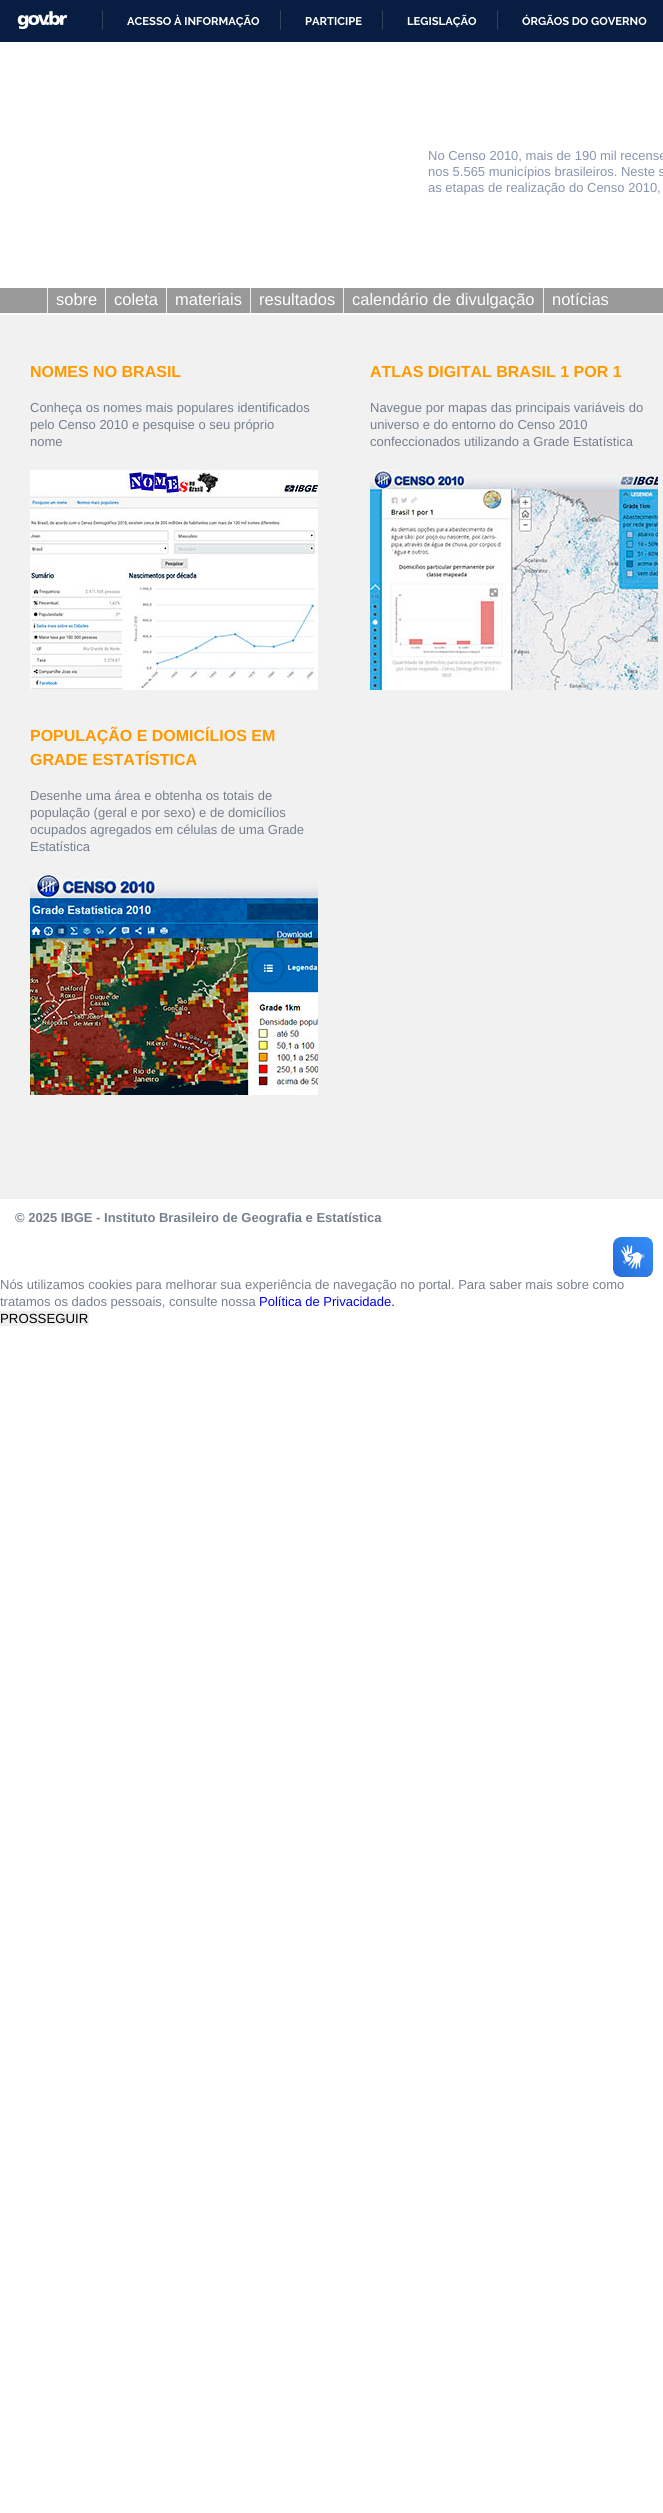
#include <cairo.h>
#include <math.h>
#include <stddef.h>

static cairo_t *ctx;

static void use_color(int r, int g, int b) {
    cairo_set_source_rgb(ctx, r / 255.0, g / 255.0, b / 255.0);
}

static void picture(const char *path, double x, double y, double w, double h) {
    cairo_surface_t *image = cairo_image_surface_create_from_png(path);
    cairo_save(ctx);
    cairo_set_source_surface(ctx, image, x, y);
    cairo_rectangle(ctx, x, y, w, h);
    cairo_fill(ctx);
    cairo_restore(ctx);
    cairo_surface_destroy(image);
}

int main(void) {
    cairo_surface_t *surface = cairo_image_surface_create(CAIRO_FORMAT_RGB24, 663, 2513);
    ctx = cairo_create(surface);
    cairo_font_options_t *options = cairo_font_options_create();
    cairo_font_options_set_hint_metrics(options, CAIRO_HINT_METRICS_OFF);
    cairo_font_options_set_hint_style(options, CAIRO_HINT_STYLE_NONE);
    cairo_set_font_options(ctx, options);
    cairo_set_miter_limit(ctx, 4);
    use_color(255, 255, 255);
    cairo_paint(ctx);
    use_color(7, 29, 65);
    cairo_rectangle(ctx, 0, 0, 663, 42);
    cairo_fill(ctx);
    picture("img1.png", 17, 11, 50, 18);
    use_color(50, 66, 91);
    cairo_rectangle(ctx, 102, 10, 1, 20);
    cairo_fill(ctx);
    cairo_select_font_face(ctx, "Raleway", CAIRO_FONT_SLANT_NORMAL, CAIRO_FONT_WEIGHT_BOLD);
    cairo_set_font_size(ctx, 11.25);
    use_color(255, 255, 255);
    cairo_move_to(ctx, 127, 25);
    cairo_show_text(ctx, "ACESSO À INFORMAÇÃO");
    use_color(50, 66, 91);
    cairo_rectangle(ctx, 280, 10, 1, 20);
    cairo_fill(ctx);
    use_color(255, 255, 255);
    cairo_move_to(ctx, 305, 25);
    cairo_show_text(ctx, "PARTICIPE");
    use_color(50, 66, 91);
    cairo_rectangle(ctx, 382, 10, 1, 20);
    cairo_fill(ctx);
    use_color(255, 255, 255);
    cairo_move_to(ctx, 407, 25);
    cairo_show_text(ctx, "LEGISLAÇÃO");
    use_color(50, 66, 91);
    cairo_rectangle(ctx, 497, 10, 1, 20);
    cairo_fill(ctx);
    use_color(255, 255, 255);
    cairo_move_to(ctx, 522, 25);
    cairo_show_text(ctx, "ÓRGÃOS DO GOVERNO");
    cairo_select_font_face(ctx, "Liberation Sans", CAIRO_FONT_SLANT_NORMAL, CAIRO_FONT_WEIGHT_NORMAL);
    cairo_set_font_size(ctx, 13);
    use_color(135, 149, 173);
    cairo_move_to(ctx, 428, 160);
    cairo_show_text(ctx, "No Censo 2010, mais de 190 mil recense");
    cairo_move_to(ctx, 428, 176);
    cairo_show_text(ctx, "nos 5.565 municípios brasileiros. Neste s");
    cairo_move_to(ctx, 428, 192);
    cairo_show_text(ctx, "as etapas de realização do Censo 2010,");
    use_color(153, 153, 153);
    cairo_rectangle(ctx, 0, 288, 663, 25);
    cairo_fill(ctx);
    use_color(239, 239, 239);
    cairo_rectangle(ctx, 47, 288, 1, 25);
    cairo_fill(ctx);
    cairo_set_font_size(ctx, 16.5);
    use_color(255, 255, 255);
    cairo_move_to(ctx, 56, 305);
    cairo_show_text(ctx, "sobre");
    use_color(239, 239, 239);
    cairo_rectangle(ctx, 105, 288, 1, 25);
    cairo_fill(ctx);
    use_color(255, 255, 255);
    cairo_move_to(ctx, 114, 305);
    cairo_show_text(ctx, "coleta");
    use_color(239, 239, 239);
    cairo_rectangle(ctx, 166, 288, 1, 25);
    cairo_fill(ctx);
    use_color(255, 255, 255);
    cairo_move_to(ctx, 175, 305);
    cairo_show_text(ctx, "materiais");
    use_color(239, 239, 239);
    cairo_rectangle(ctx, 250, 288, 1, 25);
    cairo_fill(ctx);
    use_color(255, 255, 255);
    cairo_move_to(ctx, 259, 305);
    cairo_show_text(ctx, "resultados");
    use_color(239, 239, 239);
    cairo_rectangle(ctx, 343, 288, 1, 25);
    cairo_fill(ctx);
    use_color(255, 255, 255);
    cairo_move_to(ctx, 352, 305);
    cairo_show_text(ctx, "calendário de divulgação");
    use_color(239, 239, 239);
    cairo_rectangle(ctx, 543, 288, 1, 25);
    cairo_fill(ctx);
    use_color(255, 255, 255);
    cairo_move_to(ctx, 552, 305);
    cairo_show_text(ctx, "notícias");
    use_color(241, 241, 241);
    cairo_rectangle(ctx, 0, 315, 663, 884);
    cairo_fill(ctx);
    cairo_select_font_face(ctx, "Liberation Sans", CAIRO_FONT_SLANT_NORMAL, CAIRO_FONT_WEIGHT_BOLD);
    cairo_set_font_size(ctx, 16);
    use_color(255, 153, 0);
    cairo_move_to(ctx, 30, 377);
    cairo_show_text(ctx, "NOMES NO BRASIL");
    cairo_select_font_face(ctx, "Liberation Sans", CAIRO_FONT_SLANT_NORMAL, CAIRO_FONT_WEIGHT_NORMAL);
    cairo_set_font_size(ctx, 13);
    use_color(117, 127, 142);
    cairo_move_to(ctx, 30, 412);
    cairo_show_text(ctx, "Conheça os nomes mais populares identificados");
    cairo_move_to(ctx, 30, 429);
    cairo_show_text(ctx, "pelo Censo 2010 e pesquise o seu próprio");
    cairo_move_to(ctx, 30, 446);
    cairo_show_text(ctx, "nome");
    picture("img2.png", 30, 470, 288, 220);
    cairo_select_font_face(ctx, "Liberation Sans", CAIRO_FONT_SLANT_NORMAL, CAIRO_FONT_WEIGHT_BOLD);
    cairo_set_font_size(ctx, 16);
    use_color(255, 153, 0);
    cairo_move_to(ctx, 30, 741);
    cairo_show_text(ctx, "POPULAÇÃO E DOMICÍLIOS EM");
    cairo_move_to(ctx, 30, 765);
    cairo_show_text(ctx, "GRADE ESTATÍSTICA");
    cairo_select_font_face(ctx, "Liberation Sans", CAIRO_FONT_SLANT_NORMAL, CAIRO_FONT_WEIGHT_NORMAL);
    cairo_set_font_size(ctx, 13);
    use_color(117, 127, 142);
    cairo_move_to(ctx, 30, 800);
    cairo_show_text(ctx, "Desenhe uma área e obtenha os totais de");
    cairo_move_to(ctx, 30, 817);
    cairo_show_text(ctx, "população (geral e por sexo) e de domicílios");
    cairo_move_to(ctx, 30, 834);
    cairo_show_text(ctx, "ocupados agregados em células de uma Grade");
    cairo_move_to(ctx, 30, 851);
    cairo_show_text(ctx, "Estatística");
    picture("img3.png", 30, 875, 288, 220);
    cairo_select_font_face(ctx, "Liberation Sans", CAIRO_FONT_SLANT_NORMAL, CAIRO_FONT_WEIGHT_BOLD);
    cairo_set_font_size(ctx, 16);
    use_color(255, 153, 0);
    cairo_move_to(ctx, 370, 377);
    cairo_show_text(ctx, "ATLAS DIGITAL BRASIL 1 POR 1");
    cairo_select_font_face(ctx, "Liberation Sans", CAIRO_FONT_SLANT_NORMAL, CAIRO_FONT_WEIGHT_NORMAL);
    cairo_set_font_size(ctx, 13);
    use_color(117, 127, 142);
    cairo_move_to(ctx, 370, 412);
    cairo_show_text(ctx, "Navegue por mapas das principais variáveis do");
    cairo_move_to(ctx, 370, 429);
    cairo_show_text(ctx, "universo e do entorno do Censo 2010");
    cairo_move_to(ctx, 370, 446);
    cairo_show_text(ctx, "confeccionados utilizando a Grade Estatística");
    picture("img4.png", 370, 470, 288, 220);
    cairo_select_font_face(ctx, "Liberation Sans", CAIRO_FONT_SLANT_NORMAL, CAIRO_FONT_WEIGHT_BOLD);
    cairo_move_to(ctx, 15, 1222);
    cairo_show_text(ctx, "© 2025 IBGE - Instituto Brasileiro de Geografia e Estatística");
    picture("img5.png", 613, 1237, 40, 40);
    picture("img6.png", 613, 1237, 40, 40);
    cairo_select_font_face(ctx, "Liberation Sans", CAIRO_FONT_SLANT_NORMAL, CAIRO_FONT_WEIGHT_NORMAL);
    cairo_move_to(ctx, 0, 1289);
    cairo_show_text(ctx, "Nós utilizamos cookies para melhorar sua experiência de navegação no portal. Para saber mais sobre como");
    cairo_move_to(ctx, 0, 1306);
    cairo_show_text(ctx, "tratamos os dados pessoais, consulte nossa");
    use_color(0, 0, 238);
    cairo_move_to(ctx, 259, 1306);
    cairo_show_text(ctx, "Política de Privacidade.");
    use_color(239, 239, 239);
    cairo_rectangle(ctx, 0, 1311, 89, 15);
    cairo_fill(ctx);
    cairo_set_font_size(ctx, 13.25);
    use_color(0, 0, 0);
    cairo_move_to(ctx, 0, 1323);
    cairo_show_text(ctx, "PROSSEGUIR");
    cairo_surface_write_to_png(surface, "result.png");
    cairo_font_options_destroy(options);
    cairo_destroy(ctx);
    cairo_surface_destroy(surface);
    return 0;
}
